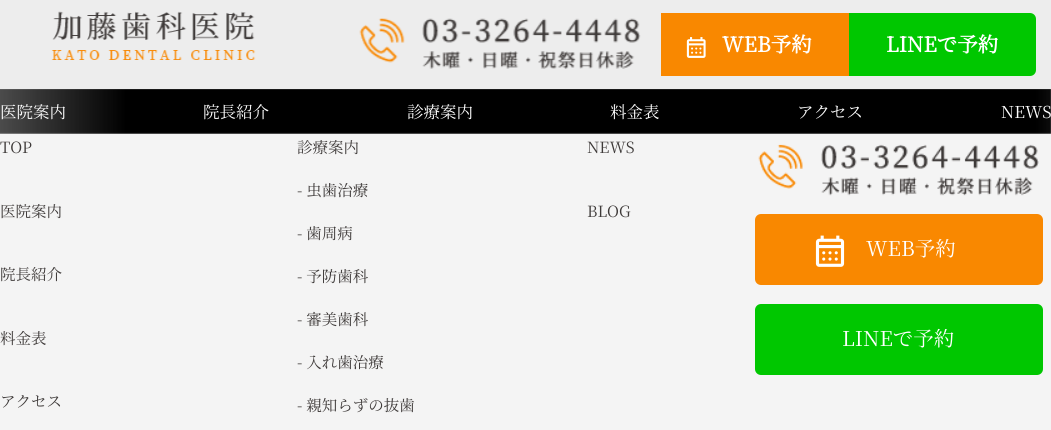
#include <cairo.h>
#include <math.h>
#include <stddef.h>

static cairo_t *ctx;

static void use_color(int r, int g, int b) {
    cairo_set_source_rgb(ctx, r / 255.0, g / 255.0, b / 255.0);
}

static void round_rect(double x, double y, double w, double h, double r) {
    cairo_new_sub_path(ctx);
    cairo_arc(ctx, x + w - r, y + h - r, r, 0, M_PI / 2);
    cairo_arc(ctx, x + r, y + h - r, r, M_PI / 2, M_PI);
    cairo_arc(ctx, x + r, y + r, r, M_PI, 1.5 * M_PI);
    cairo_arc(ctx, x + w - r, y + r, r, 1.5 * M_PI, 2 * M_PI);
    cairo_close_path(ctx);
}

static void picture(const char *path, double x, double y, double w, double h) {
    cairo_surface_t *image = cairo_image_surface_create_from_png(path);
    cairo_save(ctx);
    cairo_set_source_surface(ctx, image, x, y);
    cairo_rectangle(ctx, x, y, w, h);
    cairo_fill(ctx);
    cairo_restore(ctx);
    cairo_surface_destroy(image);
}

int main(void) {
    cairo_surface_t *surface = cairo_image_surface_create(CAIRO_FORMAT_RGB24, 1051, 430);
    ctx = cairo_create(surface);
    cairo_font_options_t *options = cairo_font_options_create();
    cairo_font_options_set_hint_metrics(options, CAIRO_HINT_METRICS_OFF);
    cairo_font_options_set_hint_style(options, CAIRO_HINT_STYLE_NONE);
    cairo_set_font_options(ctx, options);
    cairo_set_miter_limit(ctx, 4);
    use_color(244, 244, 244);
    cairo_paint(ctx);
    use_color(237, 237, 237);
    cairo_rectangle(ctx, 0, 0, 1051, 134);
    cairo_fill(ctx);
    picture("img1.png", 51, 11, 205, 49);
    picture("img2.png", 359, 18, 282, 51);
    use_color(249, 136, 0);
    cairo_rectangle(ctx, 661, 13, 188, 63);
    cairo_fill(ctx);
    picture("img3.png", 686, 37, 20, 21);
    cairo_select_font_face(ctx, "Noto Serif JP", CAIRO_FONT_SLANT_NORMAL, CAIRO_FONT_WEIGHT_BOLD);
    cairo_set_font_size(ctx, 20.5);
    use_color(255, 255, 255);
    cairo_move_to(ctx, 722, 52);
    cairo_show_text(ctx, "WEB予約");
    use_color(0, 199, 0);
    cairo_new_path(ctx);
    cairo_move_to(ctx, 850.5, 14.5);
    cairo_line_to(ctx, 1030, 14.5);
    cairo_curve_to(ctx, 1032.5, 14.5, 1034.5, 16.5, 1034.5, 19);
    cairo_line_to(ctx, 1034.5, 70);
    cairo_curve_to(ctx, 1034.5, 72.5, 1032.5, 74.5, 1030, 74.5);
    cairo_line_to(ctx, 850.5, 74.5);
    cairo_close_path(ctx);
    cairo_fill_preserve(ctx);
    cairo_set_line_width(ctx, 3);
    cairo_stroke(ctx);
    use_color(255, 255, 255);
    cairo_move_to(ctx, 886, 52);
    cairo_show_text(ctx, "LINEで予約");
    picture("img4.png", 0, 89, 1051, 45);
    cairo_select_font_face(ctx, "Noto Serif JP ExtraLight", CAIRO_FONT_SLANT_NORMAL, CAIRO_FONT_WEIGHT_NORMAL);
    cairo_set_font_size(ctx, 16.5);
    cairo_move_to(ctx, 0, 118);
    cairo_show_text(ctx, "医院案内");
    cairo_move_to(ctx, 203, 118);
    cairo_show_text(ctx, "院長紹介");
    cairo_move_to(ctx, 407, 118);
    cairo_show_text(ctx, "診療案内");
    cairo_move_to(ctx, 610, 118);
    cairo_show_text(ctx, "料金表");
    cairo_move_to(ctx, 797, 118);
    cairo_show_text(ctx, "アクセス");
    cairo_move_to(ctx, 1001, 118);
    cairo_show_text(ctx, "NEWS");
    cairo_set_font_size(ctx, 15.5);
    use_color(62, 58, 57);
    cairo_move_to(ctx, 0, 153);
    cairo_show_text(ctx, "TOP");
    cairo_move_to(ctx, 0, 217);
    cairo_show_text(ctx, "医院案内");
    cairo_move_to(ctx, 0, 280);
    cairo_show_text(ctx, "院長紹介");
    cairo_move_to(ctx, 0, 344);
    cairo_show_text(ctx, "料金表");
    cairo_move_to(ctx, 0, 407);
    cairo_show_text(ctx, "アクセス");
    cairo_move_to(ctx, 297, 153);
    cairo_show_text(ctx, "診療案内");
    cairo_move_to(ctx, 297, 196);
    cairo_show_text(ctx, "- 虫歯治療");
    cairo_move_to(ctx, 297, 239);
    cairo_show_text(ctx, "- 歯周病");
    cairo_move_to(ctx, 297, 282);
    cairo_show_text(ctx, "- 予防歯科");
    cairo_move_to(ctx, 297, 325);
    cairo_show_text(ctx, "- 審美歯科");
    cairo_move_to(ctx, 297, 368);
    cairo_show_text(ctx, "- 入れ歯治療");
    cairo_move_to(ctx, 297, 411);
    cairo_show_text(ctx, "- 親知らずの抜歯");
    cairo_move_to(ctx, 587, 153);
    cairo_show_text(ctx, "NEWS");
    cairo_move_to(ctx, 587, 217);
    cairo_show_text(ctx, "BLOG");
    picture("img5.png", 758, 144, 281, 52);
    use_color(249, 136, 0);
    round_rect(755, 214, 288, 71, 6);
    cairo_fill(ctx);
    picture("img6.png", 815, 235, 30, 32);
    cairo_set_font_size(ctx, 20.5);
    use_color(255, 255, 255);
    cairo_move_to(ctx, 866, 256);
    cairo_show_text(ctx, "WEB予約");
    use_color(0, 199, 0);
    round_rect(755, 304, 288, 71, 6);
    cairo_fill(ctx);
    use_color(255, 255, 255);
    cairo_move_to(ctx, 842, 346);
    cairo_show_text(ctx, "LINEで予約");
    cairo_surface_write_to_png(surface, "result.png");
    cairo_font_options_destroy(options);
    cairo_destroy(ctx);
    cairo_surface_destroy(surface);
    return 0;
}
